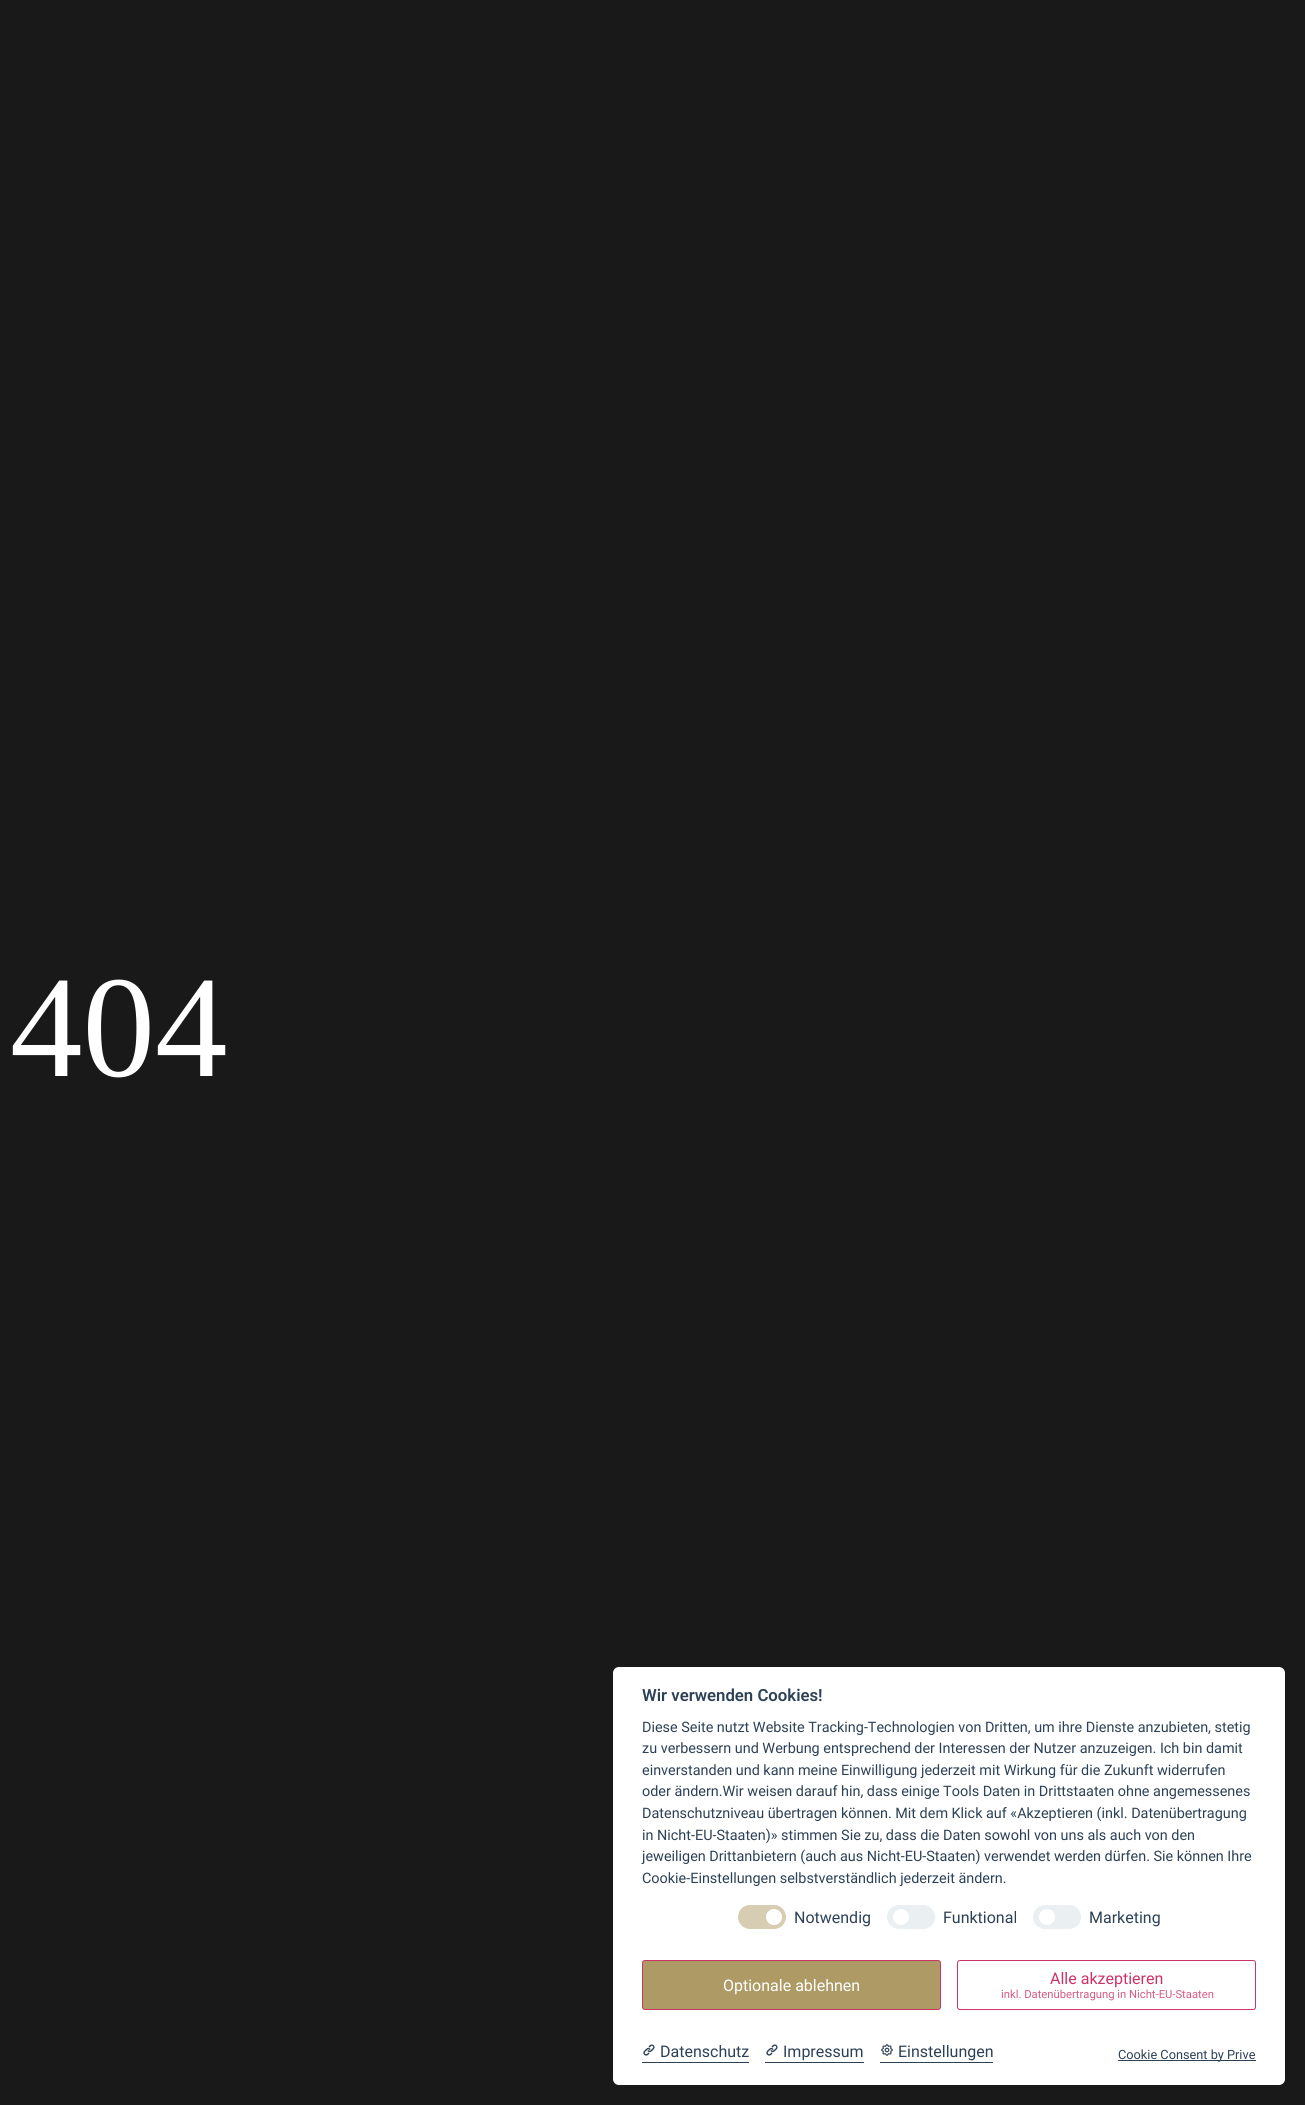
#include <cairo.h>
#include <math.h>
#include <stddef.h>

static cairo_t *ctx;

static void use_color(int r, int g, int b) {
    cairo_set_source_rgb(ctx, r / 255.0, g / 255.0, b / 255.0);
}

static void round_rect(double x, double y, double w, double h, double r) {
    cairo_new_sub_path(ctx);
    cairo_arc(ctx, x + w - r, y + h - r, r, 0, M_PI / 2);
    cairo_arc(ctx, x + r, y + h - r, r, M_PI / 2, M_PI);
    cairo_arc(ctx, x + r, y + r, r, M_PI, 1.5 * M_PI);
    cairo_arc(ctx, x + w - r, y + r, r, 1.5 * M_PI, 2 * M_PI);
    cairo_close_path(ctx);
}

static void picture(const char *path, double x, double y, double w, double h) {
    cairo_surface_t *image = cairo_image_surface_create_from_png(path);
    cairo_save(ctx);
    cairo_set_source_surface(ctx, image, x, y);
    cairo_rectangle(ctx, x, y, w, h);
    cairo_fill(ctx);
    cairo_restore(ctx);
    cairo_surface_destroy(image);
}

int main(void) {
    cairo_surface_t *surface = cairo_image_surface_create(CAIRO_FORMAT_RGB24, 1305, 2105);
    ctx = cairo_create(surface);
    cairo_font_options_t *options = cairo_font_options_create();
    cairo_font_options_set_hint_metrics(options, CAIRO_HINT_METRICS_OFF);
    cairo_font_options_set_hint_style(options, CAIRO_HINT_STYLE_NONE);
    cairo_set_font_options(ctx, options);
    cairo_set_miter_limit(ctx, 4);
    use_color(26, 25, 25);
    cairo_paint(ctx);
    cairo_select_font_face(ctx, "Liberation Serif", CAIRO_FONT_SLANT_NORMAL, CAIRO_FONT_WEIGHT_NORMAL);
    cairo_set_font_size(ctx, 145);
    use_color(255, 255, 255);
    cairo_move_to(ctx, 10, 1076);
    cairo_show_text(ctx, "404");
    round_rect(613, 1667, 672, 418, 6);
    cairo_fill(ctx);
    cairo_select_font_face(ctx, "Roboto SemiBold", CAIRO_FONT_SLANT_NORMAL, CAIRO_FONT_WEIGHT_NORMAL);
    cairo_set_font_size(ctx, 16.75);
    use_color(45, 65, 86);
    cairo_move_to(ctx, 642, 1701);
    cairo_show_text(ctx, "Wir verwenden Cookies!");
    cairo_select_font_face(ctx, "Roboto", CAIRO_FONT_SLANT_NORMAL, CAIRO_FONT_WEIGHT_NORMAL);
    cairo_set_font_size(ctx, 14.4);
    cairo_move_to(ctx, 642, 1732);
    cairo_show_text(ctx, "Diese Seite nutzt Website Tracking-Technologien von Dritten, um ihre Dienste anzubieten, stetig");
    cairo_move_to(ctx, 642, 1753);
    cairo_show_text(ctx, "zu verbessern und Werbung entsprechend der Interessen der Nutzer anzuzeigen. Ich bin damit");
    cairo_move_to(ctx, 642, 1775);
    cairo_show_text(ctx, "einverstanden und kann meine Einwilligung jederzeit mit Wirkung für die Zukunft widerrufen");
    cairo_move_to(ctx, 642, 1796);
    cairo_show_text(ctx, "oder ändern.Wir weisen darauf hin, dass einige Tools Daten in Drittstaaten ohne angemessenes");
    cairo_move_to(ctx, 642, 1818);
    cairo_show_text(ctx, "Datenschutzniveau übertragen können. Mit dem Klick auf «Akzeptieren (inkl. Datenübertragung");
    cairo_move_to(ctx, 642, 1840);
    cairo_show_text(ctx, "in Nicht-EU-Staaten)» stimmen Sie zu, dass die Daten sowohl von uns als auch von den");
    cairo_move_to(ctx, 642, 1861);
    cairo_show_text(ctx, "jeweiligen Drittanbietern (auch aus Nicht-EU-Staaten) verwendet werden dürfen. Sie können Ihre");
    cairo_move_to(ctx, 642, 1883);
    cairo_show_text(ctx, "Cookie-Einstellungen selbstverständlich jederzeit ändern.");
    use_color(214, 205, 178);
    round_rect(738, 1905, 48, 24, 12);
    cairo_fill(ctx);
    use_color(255, 255, 255);
    cairo_arc(ctx, 774, 1917, 8, 0, 2 * M_PI);
    cairo_fill(ctx);
    cairo_set_font_size(ctx, 16);
    use_color(45, 65, 86);
    cairo_move_to(ctx, 794, 1923);
    cairo_show_text(ctx, "Notwendig");
    use_color(234, 239, 242);
    round_rect(887, 1905, 48, 24, 12);
    cairo_fill(ctx);
    use_color(255, 255, 255);
    cairo_arc(ctx, 901, 1917, 8, 0, 2 * M_PI);
    cairo_fill(ctx);
    use_color(45, 65, 86);
    cairo_move_to(ctx, 943, 1923);
    cairo_show_text(ctx, "Funktional");
    use_color(234, 239, 242);
    round_rect(1033, 1905, 48, 24, 12);
    cairo_fill(ctx);
    use_color(255, 255, 255);
    cairo_arc(ctx, 1047, 1917, 8, 0, 2 * M_PI);
    cairo_fill(ctx);
    use_color(45, 65, 86);
    cairo_move_to(ctx, 1089, 1923);
    cairo_show_text(ctx, "Marketing");
    use_color(173, 154, 100);
    round_rect(642.5, 1960.5, 298, 49, 2.5);
    cairo_fill_preserve(ctx);
    use_color(204, 51, 102);
    cairo_set_line_width(ctx, 1);
    cairo_stroke(ctx);
    use_color(255, 255, 255);
    cairo_move_to(ctx, 723, 1991);
    cairo_show_text(ctx, "Optionale ablehnen");
    round_rect(957.5, 1960.5, 298, 49, 2.5);
    use_color(204, 51, 102);
    cairo_stroke(ctx);
    cairo_move_to(ctx, 1050, 1984);
    cairo_show_text(ctx, "Alle akzeptieren");
    cairo_set_font_size(ctx, 11.25);
    use_color(214, 92, 133);
    cairo_move_to(ctx, 1001, 1998);
    cairo_show_text(ctx, "inkl. Datenübertragung in Nicht-EU-Staaten");
    use_color(45, 65, 86);
    cairo_rectangle(ctx, 642, 2062, 107, 1);
    cairo_fill(ctx);
    picture("img1.png", 643, 2044, 12, 12);
    cairo_set_font_size(ctx, 16);
    cairo_move_to(ctx, 660, 2057);
    cairo_show_text(ctx, "Datenschutz");
    cairo_rectangle(ctx, 765, 2062, 99, 1);
    cairo_fill(ctx);
    picture("img1.png", 766, 2044, 12, 12);
    cairo_move_to(ctx, 783, 2057);
    cairo_show_text(ctx, "Impressum");
    cairo_rectangle(ctx, 880, 2062, 113, 1);
    cairo_fill(ctx);
    picture("img2.png", 881, 2044, 12, 12);
    cairo_move_to(ctx, 898, 2057);
    cairo_show_text(ctx, "Einstellungen");
    cairo_rectangle(ctx, 1118, 2060, 138, 1);
    cairo_fill(ctx);
    cairo_set_font_size(ctx, 12.75);
    cairo_move_to(ctx, 1118, 2059);
    cairo_show_text(ctx, "Cookie Consent by Prive");
    cairo_surface_write_to_png(surface, "result.png");
    cairo_font_options_destroy(options);
    cairo_destroy(ctx);
    cairo_surface_destroy(surface);
    return 0;
}
